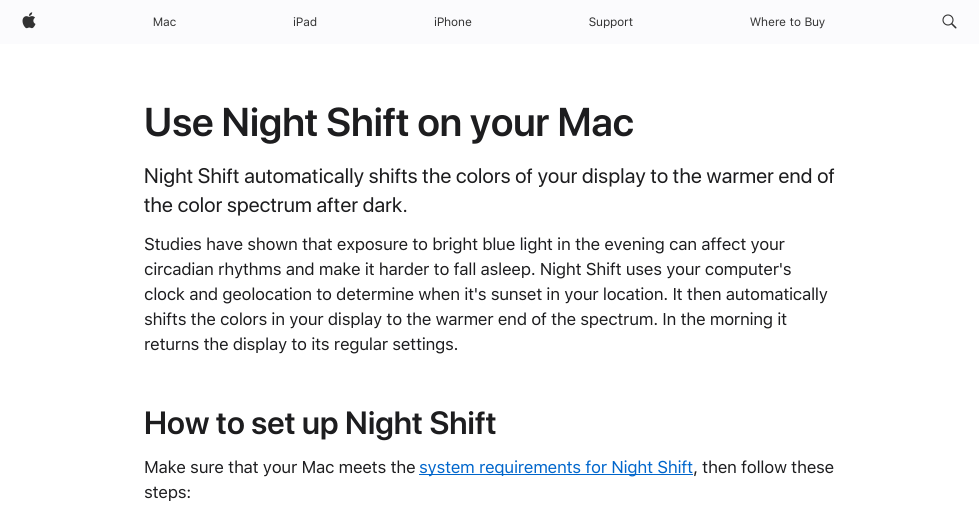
#include <cairo.h>
#include <math.h>
#include <stddef.h>

static cairo_t *ctx;

static void use_color(int r, int g, int b) {
    cairo_set_source_rgb(ctx, r / 255.0, g / 255.0, b / 255.0);
}

static void spaced_text(double x, double y, const char *s, double letter, double word) {
    cairo_move_to(ctx, x, y);
    while (*s) {
        char ch[5] = {0};
        int n = 0;
        do ch[n++] = *s++; while ((*s & 0xC0) == 0x80);
        cairo_show_text(ctx, ch);
        cairo_rel_move_to(ctx, letter + word * (*ch == ' '), 0);
    }
}

static void picture(const char *path, double x, double y, double w, double h) {
    cairo_surface_t *image = cairo_image_surface_create_from_png(path);
    cairo_save(ctx);
    cairo_set_source_surface(ctx, image, x, y);
    cairo_rectangle(ctx, x, y, w, h);
    cairo_fill(ctx);
    cairo_restore(ctx);
    cairo_surface_destroy(image);
}

int main(void) {
    cairo_surface_t *surface = cairo_image_surface_create(CAIRO_FORMAT_RGB24, 979, 530);
    ctx = cairo_create(surface);
    cairo_font_options_t *options = cairo_font_options_create();
    cairo_font_options_set_hint_metrics(options, CAIRO_HINT_METRICS_OFF);
    cairo_font_options_set_hint_style(options, CAIRO_HINT_STYLE_NONE);
    cairo_set_font_options(ctx, options);
    cairo_set_miter_limit(ctx, 4);
    use_color(255, 255, 255);
    cairo_paint(ctx);
    use_color(251, 251, 253);
    cairo_rectangle(ctx, 0, 0, 979, 44);
    cairo_fill(ctx);
    picture("img1.png", 22, 12, 14, 17);
    picture("img2.png", 153, 17, 23, 10);
    picture("img3.png", 293, 17, 24, 10);
    picture("img4.png", 434, 17, 38, 10);
    picture("img5.png", 589, 17, 44, 12);
    picture("img6.png", 750, 17, 75, 12);
    picture("img7.png", 942, 14, 15, 15);
    cairo_select_font_face(ctx, "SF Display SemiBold", CAIRO_FONT_SLANT_NORMAL, CAIRO_FONT_WEIGHT_NORMAL);
    cairo_set_font_size(ctx, 40);
    use_color(29, 29, 31);
    cairo_move_to(ctx, 144, 136);
    cairo_show_text(ctx, "Use Night Shift on your Mac");
    cairo_select_font_face(ctx, "SF Display", CAIRO_FONT_SLANT_NORMAL, CAIRO_FONT_WEIGHT_NORMAL);
    cairo_set_font_size(ctx, 21);
    spaced_text(144, 183, "Night Shift automatically shifts the colors of your display to the warmer end of", 0.23, 0);
    spaced_text(144, 212, "the color spectrum after dark.", 0.23, 0);
    cairo_select_font_face(ctx, "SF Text", CAIRO_FONT_SLANT_NORMAL, CAIRO_FONT_WEIGHT_NORMAL);
    cairo_set_font_size(ctx, 17);
    spaced_text(144, 250, "Studies have shown that exposure to bright blue light in the evening can affect your", -0.37, 0);
    spaced_text(144, 275, "circadian rhythms and make it harder to fall asleep. Night Shift uses your computer's", -0.37, 0);
    spaced_text(144, 300, "clock and geolocation to determine when it's sunset in your location. It then automatically", -0.37, 0);
    spaced_text(144, 325, "shifts the colors in your display to the warmer end of the spectrum. In the morning it", -0.37, 0);
    spaced_text(144, 350, "returns the display to its regular settings.", -0.37, 0);
    cairo_select_font_face(ctx, "SF Display SemiBold", CAIRO_FONT_SLANT_NORMAL, CAIRO_FONT_WEIGHT_NORMAL);
    cairo_set_font_size(ctx, 32);
    spaced_text(144, 434, "How to set up Night Shift", 0.1, 0);
    cairo_select_font_face(ctx, "SF Text", CAIRO_FONT_SLANT_NORMAL, CAIRO_FONT_WEIGHT_NORMAL);
    cairo_set_font_size(ctx, 17);
    spaced_text(144, 473, "Make sure that your Mac meets the", -0.37, 0);
    use_color(0, 102, 204);
    cairo_rectangle(ctx, 419, 474, 274, 1);
    cairo_fill(ctx);
    spaced_text(419, 473, "system requirements for Night Shift", -0.37, 0);
    use_color(29, 29, 31);
    spaced_text(693, 473, ", then follow these", -0.37, 0);
    spaced_text(144, 498, "steps:", -0.37, 0);
    cairo_surface_write_to_png(surface, "result.png");
    cairo_font_options_destroy(options);
    cairo_destroy(ctx);
    cairo_surface_destroy(surface);
    return 0;
}
